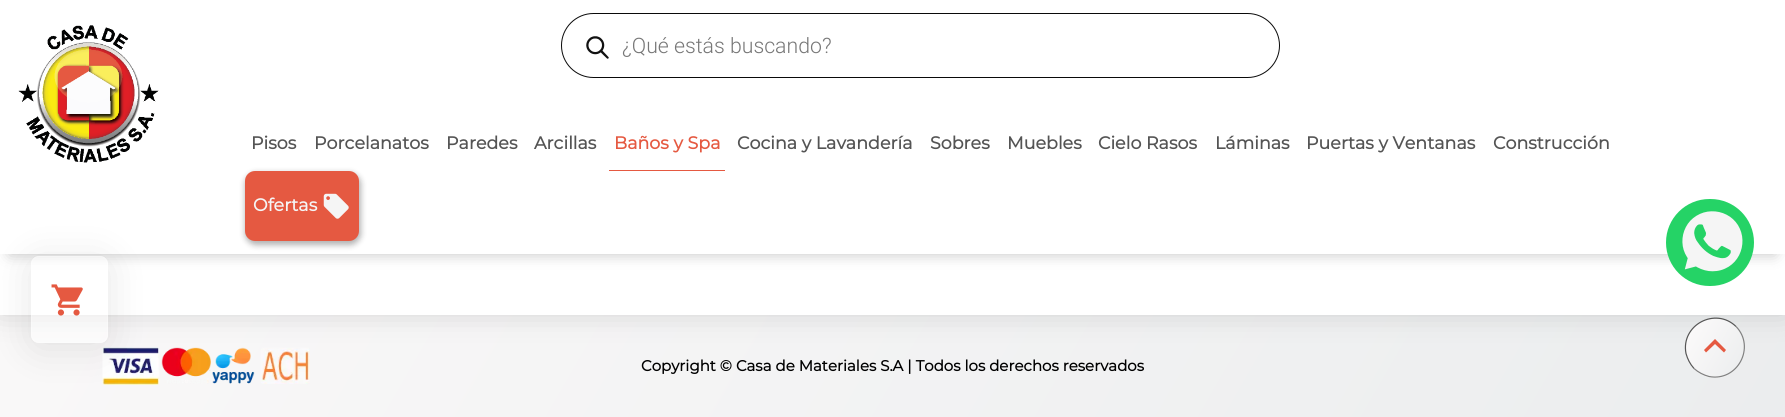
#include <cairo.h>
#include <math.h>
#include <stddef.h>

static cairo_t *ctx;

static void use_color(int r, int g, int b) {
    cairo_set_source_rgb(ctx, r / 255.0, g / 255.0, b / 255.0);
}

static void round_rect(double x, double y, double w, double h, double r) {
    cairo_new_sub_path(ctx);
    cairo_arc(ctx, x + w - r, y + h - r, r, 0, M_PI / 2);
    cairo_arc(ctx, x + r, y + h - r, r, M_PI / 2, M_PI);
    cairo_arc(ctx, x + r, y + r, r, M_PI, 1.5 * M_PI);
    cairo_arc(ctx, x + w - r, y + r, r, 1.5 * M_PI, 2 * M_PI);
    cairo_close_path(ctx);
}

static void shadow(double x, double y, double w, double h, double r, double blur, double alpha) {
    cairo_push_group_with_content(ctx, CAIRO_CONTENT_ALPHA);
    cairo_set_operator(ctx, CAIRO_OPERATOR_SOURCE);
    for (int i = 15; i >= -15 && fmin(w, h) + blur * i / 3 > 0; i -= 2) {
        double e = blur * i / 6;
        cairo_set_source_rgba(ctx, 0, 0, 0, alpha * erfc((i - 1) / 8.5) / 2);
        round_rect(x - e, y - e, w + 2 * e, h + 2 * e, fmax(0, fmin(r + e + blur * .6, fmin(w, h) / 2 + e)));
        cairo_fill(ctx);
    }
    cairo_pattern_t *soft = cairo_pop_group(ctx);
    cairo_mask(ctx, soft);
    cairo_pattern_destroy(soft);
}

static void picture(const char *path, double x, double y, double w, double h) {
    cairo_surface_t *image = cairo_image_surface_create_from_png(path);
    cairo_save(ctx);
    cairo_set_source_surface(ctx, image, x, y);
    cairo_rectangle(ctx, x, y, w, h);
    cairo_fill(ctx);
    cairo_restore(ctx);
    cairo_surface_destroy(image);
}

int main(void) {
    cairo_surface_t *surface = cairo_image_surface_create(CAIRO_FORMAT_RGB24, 1785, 417);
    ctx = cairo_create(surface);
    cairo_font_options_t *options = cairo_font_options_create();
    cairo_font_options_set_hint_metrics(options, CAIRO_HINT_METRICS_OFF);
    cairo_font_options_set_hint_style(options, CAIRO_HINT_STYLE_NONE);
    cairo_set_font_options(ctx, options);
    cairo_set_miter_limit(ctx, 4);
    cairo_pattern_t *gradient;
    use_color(255, 255, 255);
    cairo_paint(ctx);
    gradient = cairo_pattern_create_linear(35, -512, 1750, 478);
    cairo_pattern_add_color_stop_rgba(gradient, 0, 0.992, 0.984, 0.984, 1);
    cairo_pattern_add_color_stop_rgba(gradient, 1, 0.922, 0.929, 0.933, 1);
    cairo_set_source(ctx, gradient);
    cairo_pattern_destroy(gradient);
    cairo_rectangle(ctx, 0, 315, 1785, 102);
    cairo_fill(ctx);
    use_color(0, 0, 0);
    shadow(0, -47, 1785, 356, 0, 15.5, 0.2);
    use_color(255, 255, 255);
    cairo_rectangle(ctx, 0, 254, 1785, 61);
    cairo_fill(ctx);
    use_color(0, 0, 0);
    shadow(10, 20, 1765, 234, 0, 7.5, 0.24);
    use_color(255, 255, 255);
    cairo_rectangle(ctx, 0, 0, 1785, 254);
    cairo_fill(ctx);
    picture("img5.png", 102, 347, 208, 38);
    cairo_save(ctx);
    cairo_set_fill_rule(ctx, CAIRO_FILL_RULE_EVEN_ODD);
    cairo_new_path(ctx);
    cairo_move_to(ctx, 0, 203);
    cairo_line_to(ctx, 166, 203);
    cairo_line_to(ctx, 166, 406);
    cairo_line_to(ctx, 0, 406);
    cairo_close_path(ctx);
    cairo_move_to(ctx, 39, 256);
    cairo_line_to(ctx, 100, 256);
    cairo_curve_to(ctx, 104.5, 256, 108, 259.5, 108, 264);
    cairo_line_to(ctx, 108, 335);
    cairo_curve_to(ctx, 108, 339.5, 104.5, 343, 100, 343);
    cairo_line_to(ctx, 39, 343);
    cairo_curve_to(ctx, 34.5, 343, 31, 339.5, 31, 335);
    cairo_line_to(ctx, 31, 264);
    cairo_curve_to(ctx, 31, 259.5, 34.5, 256, 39, 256);
    cairo_close_path(ctx);
    cairo_clip(ctx);
    use_color(0, 0, 0);
    shadow(31, 261, 77, 87, 8, 19, 0.1);
    cairo_restore(ctx);
    cairo_set_source_rgba(ctx, 1, 1, 1, 0.44);
    round_rect(31, 256, 77, 87, 8);
    cairo_fill(ctx);
    round_rect(31.5, 256.5, 76, 86, 7.5);
    cairo_set_source_rgba(ctx, 1, 1, 1, 0.27);
    cairo_set_line_width(ctx, 1);
    cairo_stroke(ctx);
    picture("img1.png", 51, 284, 32, 32);
    picture("img2.png", 18, 25, 141, 138);
    round_rect(561.5, 13.5, 718, 64, 32);
    use_color(10, 10, 10);
    cairo_stroke(ctx);
    picture("img3.png", 586, 36, 23, 23);
    cairo_select_font_face(ctx, "Roboto Light", CAIRO_FONT_SLANT_NORMAL, CAIRO_FONT_WEIGHT_NORMAL);
    cairo_set_font_size(ctx, 21.25);
    use_color(119, 119, 119);
    cairo_move_to(ctx, 622, 53);
    cairo_show_text(ctx, "¿Qué estás buscando?");
    cairo_select_font_face(ctx, "Montserrat", CAIRO_FONT_SLANT_NORMAL, CAIRO_FONT_WEIGHT_BOLD);
    cairo_set_font_size(ctx, 17.5);
    use_color(84, 84, 84);
    cairo_move_to(ctx, 251, 149);
    cairo_show_text(ctx, "Pisos");
    cairo_move_to(ctx, 314, 149);
    cairo_show_text(ctx, "Porcelanatos");
    cairo_move_to(ctx, 446, 149);
    cairo_show_text(ctx, "Paredes");
    cairo_move_to(ctx, 534, 149);
    cairo_show_text(ctx, "Arcillas");
    use_color(229, 89, 65);
    cairo_rectangle(ctx, 609, 170, 116, 1);
    cairo_fill(ctx);
    cairo_move_to(ctx, 614, 149);
    cairo_show_text(ctx, "Baños y Spa");
    use_color(84, 84, 84);
    cairo_move_to(ctx, 737, 149);
    cairo_show_text(ctx, "Cocina y Lavandería");
    cairo_move_to(ctx, 930, 149);
    cairo_show_text(ctx, "Sobres");
    cairo_move_to(ctx, 1007, 149);
    cairo_show_text(ctx, "Muebles");
    cairo_move_to(ctx, 1098, 149);
    cairo_show_text(ctx, "Cielo Rasos");
    cairo_move_to(ctx, 1215, 149);
    cairo_show_text(ctx, "Láminas");
    cairo_move_to(ctx, 1306, 149);
    cairo_show_text(ctx, "Puertas y Ventanas");
    cairo_move_to(ctx, 1493, 149);
    cairo_show_text(ctx, "Construcción");
    use_color(0, 0, 0);
    shadow(245, 173, 116, 72, 11, 3, 0.3);
    use_color(229, 89, 65);
    round_rect(245, 171, 114, 70, 10);
    cairo_fill(ctx);
    use_color(245, 245, 245);
    cairo_move_to(ctx, 253, 211);
    cairo_show_text(ctx, "Ofertas");
    picture("img4.png", 323, 193, 26, 26);
    cairo_set_font_size(ctx, 15);
    use_color(0, 0, 0);
    cairo_move_to(ctx, 641, 371);
    cairo_show_text(ctx, "Copyright © Casa de Materiales S.A | Todos los derechos reservados");
    use_color(37, 211, 102);
    round_rect(1666, 199, 88, 87, 43.5);
    cairo_fill(ctx);
    picture("img6.png", 1682, 211, 61, 61);
    cairo_save(ctx);
    round_rect(1685, 318, 60, 60, 30);
    cairo_clip(ctx);
    gradient = cairo_pattern_create_linear(1681, 328, 1749, 367);
    cairo_pattern_add_color_stop_rgba(gradient, 0, 0.992, 0.984, 0.984, 1);
    cairo_pattern_add_color_stop_rgba(gradient, 1, 0.922, 0.929, 0.933, 1);
    cairo_set_source(ctx, gradient);
    cairo_pattern_destroy(gradient);
    cairo_rectangle(ctx, 1686, 319, 58, 57);
    cairo_fill(ctx);
    gradient = cairo_pattern_create_linear(1738, 328, 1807, 367);
    cairo_pattern_add_color_stop_rgba(gradient, 0, 0.992, 0.984, 0.984, 1);
    cairo_pattern_add_color_stop_rgba(gradient, 1, 0.922, 0.929, 0.933, 1);
    cairo_set_source(ctx, gradient);
    cairo_pattern_destroy(gradient);
    cairo_rectangle(ctx, 1744, 340, 1, 16);
    cairo_fill(ctx);
    gradient = cairo_pattern_create_linear(1681, 385, 1749, 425);
    cairo_pattern_add_color_stop_rgba(gradient, 0, 0.992, 0.984, 0.984, 1);
    cairo_pattern_add_color_stop_rgba(gradient, 1, 0.922, 0.929, 0.933, 1);
    cairo_set_source(ctx, gradient);
    cairo_pattern_destroy(gradient);
    cairo_rectangle(ctx, 1704, 376, 22, 2);
    cairo_fill(ctx);
    cairo_restore(ctx);
    cairo_new_path(ctx);
    cairo_move_to(ctx, 1736, 326.5);
    cairo_curve_to(ctx, 1756, 347, 1737.5, 382, 1709, 376.5);
    cairo_curve_to(ctx, 1703.5, 375, 1698.5, 372.5, 1694, 368.5);
    use_color(128, 128, 128);
    cairo_set_line_width(ctx, 1.2);
    cairo_stroke(ctx);
    cairo_new_path(ctx);
    cairo_move_to(ctx, 1694, 368.5);
    cairo_curve_to(ctx, 1690, 364, 1687.5, 359, 1686, 353.5);
    cairo_curve_to(ctx, 1680.5, 325, 1715.5, 306.5, 1736, 326.5);
    use_color(85, 85, 85);
    cairo_stroke(ctx);
    use_color(229, 89, 65);
    cairo_new_path(ctx);
    cairo_move_to(ctx, 1704, 350);
    cairo_line_to(ctx, 1715, 339);
    cairo_line_to(ctx, 1726, 350);
    cairo_line_to(ctx, 1724, 352.5);
    cairo_line_to(ctx, 1715, 344);
    cairo_line_to(ctx, 1706, 352.5);
    cairo_close_path(ctx);
    cairo_fill(ctx);
    cairo_surface_write_to_png(surface, "result.png");
    cairo_font_options_destroy(options);
    cairo_destroy(ctx);
    cairo_surface_destroy(surface);
    return 0;
}
